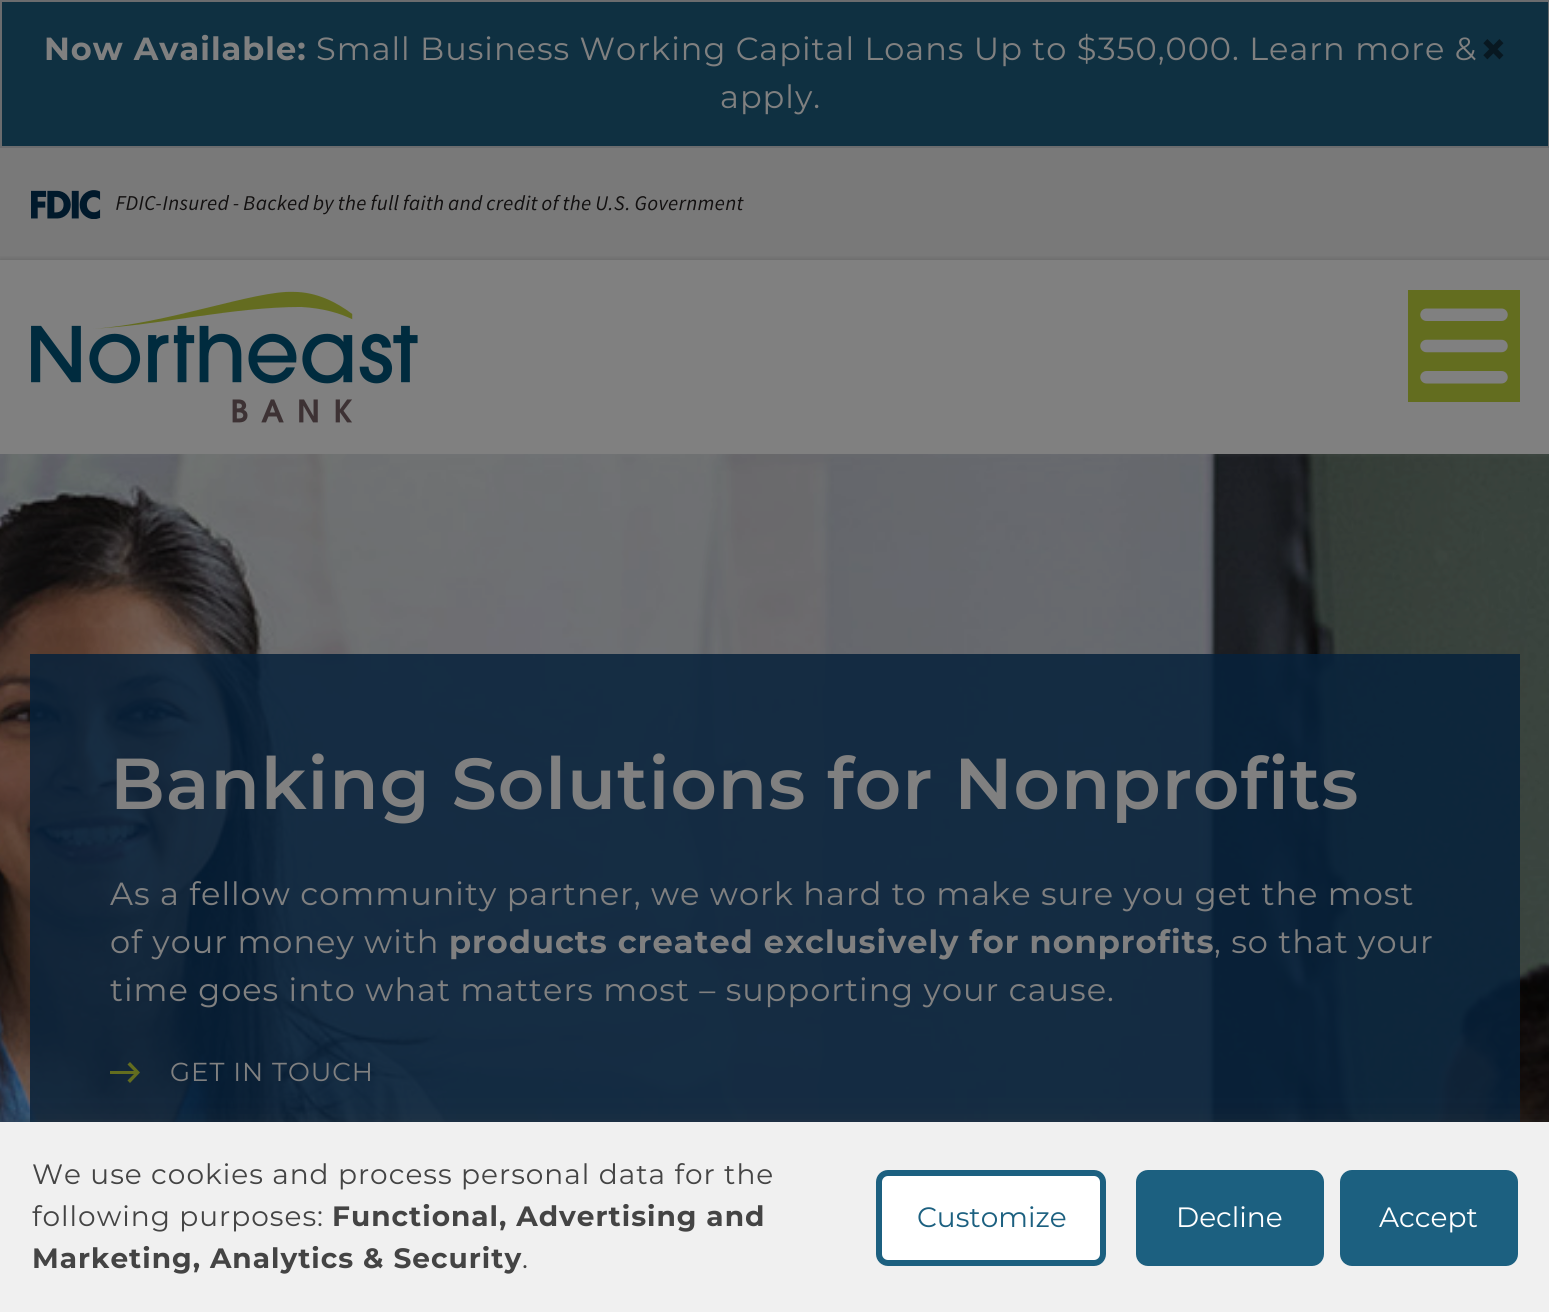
#include <cairo.h>
#include <math.h>
#include <stddef.h>

static cairo_t *ctx;

static void use_color(int r, int g, int b) {
    cairo_set_source_rgb(ctx, r / 255.0, g / 255.0, b / 255.0);
}

static void spaced_text(double x, double y, const char *s, double letter, double word) {
    cairo_move_to(ctx, x, y);
    while (*s) {
        char ch[5] = {0};
        int n = 0;
        do ch[n++] = *s++; while ((*s & 0xC0) == 0x80);
        cairo_show_text(ctx, ch);
        cairo_rel_move_to(ctx, letter + word * (*ch == ' '), 0);
    }
}

static void round_rect(double x, double y, double w, double h, double r) {
    cairo_new_sub_path(ctx);
    cairo_arc(ctx, x + w - r, y + h - r, r, 0, M_PI / 2);
    cairo_arc(ctx, x + r, y + h - r, r, M_PI / 2, M_PI);
    cairo_arc(ctx, x + r, y + r, r, M_PI, 1.5 * M_PI);
    cairo_arc(ctx, x + w - r, y + r, r, 1.5 * M_PI, 2 * M_PI);
    cairo_close_path(ctx);
}

static void shadow(double x, double y, double w, double h, double r, double blur, double alpha) {
    cairo_push_group_with_content(ctx, CAIRO_CONTENT_ALPHA);
    cairo_set_operator(ctx, CAIRO_OPERATOR_SOURCE);
    for (int i = 15; i >= -15 && fmin(w, h) + blur * i / 3 > 0; i -= 2) {
        double e = blur * i / 6;
        cairo_set_source_rgba(ctx, 0, 0, 0, alpha * erfc((i - 1) / 8.5) / 2);
        round_rect(x - e, y - e, w + 2 * e, h + 2 * e, fmax(0, fmin(r + e + blur * .6, fmin(w, h) / 2 + e)));
        cairo_fill(ctx);
    }
    cairo_pattern_t *soft = cairo_pop_group(ctx);
    cairo_mask(ctx, soft);
    cairo_pattern_destroy(soft);
}

static void picture(const char *path, double x, double y, double w, double h) {
    cairo_surface_t *image = cairo_image_surface_create_from_png(path);
    cairo_save(ctx);
    cairo_set_source_surface(ctx, image, x, y);
    cairo_rectangle(ctx, x, y, w, h);
    cairo_fill(ctx);
    cairo_restore(ctx);
    cairo_surface_destroy(image);
}

int main(void) {
    cairo_surface_t *surface = cairo_image_surface_create(CAIRO_FORMAT_RGB24, 1549, 1312);
    ctx = cairo_create(surface);
    cairo_font_options_t *options = cairo_font_options_create();
    cairo_font_options_set_hint_metrics(options, CAIRO_HINT_METRICS_OFF);
    cairo_font_options_set_hint_style(options, CAIRO_HINT_STYLE_NONE);
    cairo_set_font_options(ctx, options);
    cairo_set_miter_limit(ctx, 4);
    use_color(128, 128, 128);
    cairo_paint(ctx);
    use_color(15, 48, 65);
    cairo_rectangle(ctx, 1, 1, 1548, 146);
    cairo_fill_preserve(ctx);
    use_color(107, 108, 110);
    cairo_stroke(ctx);
    cairo_select_font_face(ctx, "Montserrat", CAIRO_FONT_SLANT_NORMAL, CAIRO_FONT_WEIGHT_BOLD);
    cairo_set_font_size(ctx, 32);
    use_color(128, 128, 128);
    spaced_text(44, 60, "Now Available:", 1, 0);
    cairo_select_font_face(ctx, "Montserrat", CAIRO_FONT_SLANT_NORMAL, CAIRO_FONT_WEIGHT_NORMAL);
    spaced_text(316, 60, "Small Business Working Capital Loans Up to $350,000. Learn more &", 1, 0);
    spaced_text(720, 108, "apply.", 1, 0);
    cairo_select_font_face(ctx, "Montserrat", CAIRO_FONT_SLANT_NORMAL, CAIRO_FONT_WEIGHT_BOLD);
    cairo_set_font_size(ctx, 48);
    use_color(8, 24, 33);
    cairo_move_to(ctx, 1479, 66);
    cairo_show_text(ctx, "×");
    use_color(121, 121, 121);
    cairo_rectangle(ctx, 0, 148, 1549, 112);
    cairo_fill(ctx);
    picture("img1.png", 31, 190, 713, 29);
    cairo_save(ctx);
    cairo_rectangle(ctx, 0, 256, 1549, 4);
    cairo_clip(ctx);
    use_color(0, 0, 0);
    shadow(0, 260, 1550, 194, 0, 3, 0.2);
    cairo_restore(ctx);
    picture("img2.png", 31, 291, 387, 132);
    use_color(99, 109, 31);
    cairo_rectangle(ctx, 1408, 290, 112, 112);
    cairo_fill(ctx);
    picture("img3.png", 1420, 308, 88, 76);
    picture("img4.png", 0, 454, 1549, 668);
    cairo_set_source_rgba(ctx, 0.027, 0.129, 0.231, 0.85);
    cairo_rectangle(ctx, 30, 654, 1490, 468);
    cairo_fill(ctx);
    cairo_select_font_face(ctx, "Montserrat SemiBold", CAIRO_FONT_SLANT_NORMAL, CAIRO_FONT_WEIGHT_NORMAL);
    cairo_set_font_size(ctx, 72);
    use_color(128, 128, 128);
    spaced_text(110, 809, "Banking Solutions for Nonprofits", 1, 0);
    cairo_select_font_face(ctx, "Montserrat", CAIRO_FONT_SLANT_NORMAL, CAIRO_FONT_WEIGHT_NORMAL);
    cairo_set_font_size(ctx, 32);
    spaced_text(110, 905, "As a fellow community partner, we work hard to make sure you get the most", 1, 0);
    spaced_text(110, 953, "of your money with", 1, 0);
    cairo_select_font_face(ctx, "Montserrat", CAIRO_FONT_SLANT_NORMAL, CAIRO_FONT_WEIGHT_BOLD);
    spaced_text(449, 953, "products created exclusively for nonprofits", 1, 0);
    cairo_select_font_face(ctx, "Montserrat", CAIRO_FONT_SLANT_NORMAL, CAIRO_FONT_WEIGHT_NORMAL);
    spaced_text(1214, 953, ", so that your", 1, 0);
    spaced_text(110, 1001, "time goes into what matters most – supporting your cause.", 1, 0);
    use_color(99, 109, 31);
    cairo_set_fill_rule(ctx, CAIRO_FILL_RULE_EVEN_ODD);
    cairo_new_path(ctx);
    cairo_move_to(ctx, 127.5, 1080.5);
    cairo_line_to(ctx, 135.5, 1072.5);
    cairo_line_to(ctx, 127.5, 1064.5);
    cairo_line_to(ctx, 130, 1062);
    cairo_line_to(ctx, 140, 1072.5);
    cairo_line_to(ctx, 130, 1083);
    cairo_close_path(ctx);
    cairo_fill(ctx);
    cairo_rectangle(ctx, 110, 1071, 28, 3);
    cairo_fill(ctx);
    cairo_set_font_size(ctx, 26);
    use_color(128, 128, 128);
    spaced_text(170, 1081, "GET IN TOUCH", 1, 0);
    use_color(68, 68, 68);
    shadow(0, 1138, 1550, 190, 0, 16, 1);
    use_color(240, 240, 240);
    cairo_rectangle(ctx, 0, 1122, 1549, 190);
    cairo_fill(ctx);
    cairo_set_font_size(ctx, 28);
    use_color(68, 68, 68);
    spaced_text(32, 1184, "We use cookies and process personal data for the", 1, 0);
    spaced_text(32, 1226, "following purposes:", 1, 0);
    cairo_select_font_face(ctx, "Montserrat", CAIRO_FONT_SLANT_NORMAL, CAIRO_FONT_WEIGHT_BOLD);
    spaced_text(332, 1226, "Functional, Advertising and", 1, 0);
    spaced_text(32, 1268, "Marketing, Analytics & Security", 1, 0);
    cairo_select_font_face(ctx, "Montserrat", CAIRO_FONT_SLANT_NORMAL, CAIRO_FONT_WEIGHT_NORMAL);
    spaced_text(522, 1268, ".", 1, 0);
    use_color(255, 255, 255);
    round_rect(879, 1173, 224, 90, 9);
    cairo_fill_preserve(ctx);
    use_color(28, 96, 128);
    cairo_set_line_width(ctx, 6);
    cairo_stroke(ctx);
    cairo_move_to(ctx, 917, 1227);
    cairo_show_text(ctx, "Customize");
    round_rect(1139, 1173, 182, 90, 9);
    cairo_fill_preserve(ctx);
    cairo_stroke(ctx);
    use_color(255, 255, 255);
    cairo_move_to(ctx, 1176, 1227);
    cairo_show_text(ctx, "Decline");
    use_color(28, 96, 128);
    round_rect(1343, 1173, 172, 90, 9);
    cairo_fill_preserve(ctx);
    cairo_stroke(ctx);
    use_color(255, 255, 255);
    cairo_move_to(ctx, 1379, 1227);
    cairo_show_text(ctx, "Accept");
    cairo_surface_write_to_png(surface, "result.png");
    cairo_font_options_destroy(options);
    cairo_destroy(ctx);
    cairo_surface_destroy(surface);
    return 0;
}
